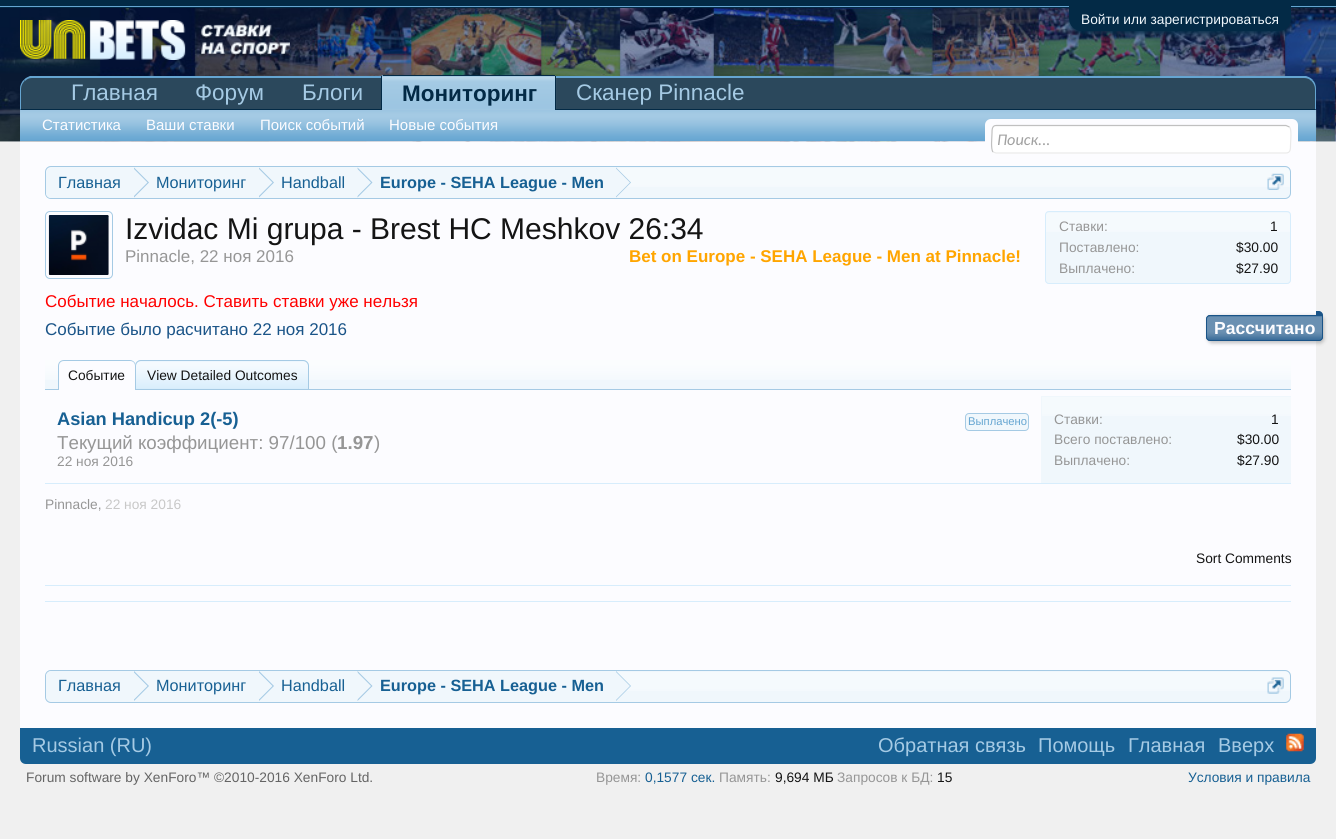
#include <cairo.h>
#include <math.h>
#include <stddef.h>

static cairo_t *ctx;

static void use_color(int r, int g, int b) {
    cairo_set_source_rgb(ctx, r / 255.0, g / 255.0, b / 255.0);
}

static void round_rect(double x, double y, double w, double h, double r) {
    cairo_new_sub_path(ctx);
    cairo_arc(ctx, x + w - r, y + h - r, r, 0, M_PI / 2);
    cairo_arc(ctx, x + r, y + h - r, r, M_PI / 2, M_PI);
    cairo_arc(ctx, x + r, y + r, r, M_PI, 1.5 * M_PI);
    cairo_arc(ctx, x + w - r, y + r, r, 1.5 * M_PI, 2 * M_PI);
    cairo_close_path(ctx);
}

static void shadow(double x, double y, double w, double h, double r, double blur, double alpha) {
    cairo_push_group_with_content(ctx, CAIRO_CONTENT_ALPHA);
    cairo_set_operator(ctx, CAIRO_OPERATOR_SOURCE);
    for (int i = 15; i >= -15 && fmin(w, h) + blur * i / 3 > 0; i -= 2) {
        double e = blur * i / 6;
        cairo_set_source_rgba(ctx, 0, 0, 0, alpha * erfc((i - 1) / 8.5) / 2);
        round_rect(x - e, y - e, w + 2 * e, h + 2 * e, fmax(0, fmin(r + e + blur * .6, fmin(w, h) / 2 + e)));
        cairo_fill(ctx);
    }
    cairo_pattern_t *soft = cairo_pop_group(ctx);
    cairo_mask(ctx, soft);
    cairo_pattern_destroy(soft);
}

static void picture(const char *path, double x, double y, double w, double h) {
    cairo_surface_t *image = cairo_image_surface_create_from_png(path);
    cairo_save(ctx);
    cairo_set_source_surface(ctx, image, x, y);
    cairo_rectangle(ctx, x, y, w, h);
    cairo_fill(ctx);
    cairo_restore(ctx);
    cairo_surface_destroy(image);
}

int main(void) {
    cairo_surface_t *surface = cairo_image_surface_create(CAIRO_FORMAT_RGB24, 1336, 839);
    ctx = cairo_create(surface);
    cairo_font_options_t *options = cairo_font_options_create();
    cairo_font_options_set_hint_metrics(options, CAIRO_HINT_METRICS_OFF);
    cairo_font_options_set_hint_style(options, CAIRO_HINT_STYLE_NONE);
    cairo_set_font_options(ctx, options);
    cairo_set_miter_limit(ctx, 4);
    use_color(240, 240, 240);
    cairo_paint(ctx);
    use_color(3, 42, 70);
    cairo_rectangle(ctx, 0, 0, 1336, 8);
    cairo_fill(ctx);
    use_color(101, 165, 209);
    cairo_rectangle(ctx, 0, 6, 1336, 1);
    cairo_fill(ctx);
    picture("img5.png", 0, 141, 1336, 1);
    use_color(252, 252, 255);
    cairo_rectangle(ctx, 20, 141, 1296, 587);
    cairo_fill(ctx);
    picture("img1.png", 0, 8, 1336, 134);
    use_color(3, 42, 70);
    shadow(1069, 9, 222, 25, 12.5, 3, 1);
    use_color(3, 42, 70);
    cairo_new_path(ctx);
    cairo_move_to(ctx, 1069, 6);
    cairo_line_to(ctx, 1291, 6);
    cairo_line_to(ctx, 1291, 18.5);
    cairo_curve_to(ctx, 1291, 25.5, 1285.5, 31, 1278.5, 31);
    cairo_line_to(ctx, 1081.5, 31);
    cairo_curve_to(ctx, 1074.5, 31, 1069, 25.5, 1069, 18.5);
    cairo_close_path(ctx);
    cairo_fill(ctx);
    cairo_select_font_face(ctx, "Liberation Sans", CAIRO_FONT_SLANT_NORMAL, CAIRO_FONT_WEIGHT_NORMAL);
    cairo_set_font_size(ctx, 13.75);
    use_color(240, 247, 252);
    cairo_move_to(ctx, 1081, 24);
    cairo_show_text(ctx, "Войти или зарегистрироваться");
    picture("img2.png", 20, 20, 270, 40);
    use_color(43, 72, 92);
    cairo_new_path(ctx);
    cairo_move_to(ctx, 33, 76);
    cairo_line_to(ctx, 1303, 76);
    cairo_curve_to(ctx, 1310, 76, 1316, 82, 1316, 89);
    cairo_line_to(ctx, 1316, 110);
    cairo_line_to(ctx, 20, 110);
    cairo_line_to(ctx, 20, 89);
    cairo_curve_to(ctx, 20, 82, 26, 76, 33, 76);
    cairo_close_path(ctx);
    cairo_fill(ctx);
    use_color(101, 165, 209);
    cairo_new_path(ctx);
    cairo_move_to(ctx, 32, 78);
    cairo_curve_to(ctx, 29, 78, 27, 79, 25, 81);
    cairo_line_to(ctx, 24, 80);
    cairo_curve_to(ctx, 25, 78, 28, 77, 30, 76);
    cairo_line_to(ctx, 1306, 76);
    cairo_curve_to(ctx, 1309, 77, 1311, 78, 1313, 80);
    cairo_line_to(ctx, 1311, 81);
    cairo_curve_to(ctx, 1310, 79, 1307, 78, 1304, 78);
    cairo_close_path(ctx);
    cairo_fill(ctx);
    cairo_new_path(ctx);
    cairo_move_to(ctx, 1312.5, 80);
    cairo_curve_to(ctx, 1315, 82, 1316, 85.5, 1316, 89);
    cairo_line_to(ctx, 1316, 110);
    cairo_line_to(ctx, 1315, 109);
    cairo_line_to(ctx, 1315, 89);
    cairo_curve_to(ctx, 1315, 86, 1313.5, 83, 1311.5, 81);
    cairo_close_path(ctx);
    cairo_fill(ctx);
    use_color(3, 42, 70);
    cairo_new_path(ctx);
    cairo_move_to(ctx, 1316, 110);
    cairo_line_to(ctx, 1315, 109);
    cairo_line_to(ctx, 21, 109);
    cairo_line_to(ctx, 20, 110);
    cairo_close_path(ctx);
    cairo_fill(ctx);
    use_color(101, 165, 209);
    cairo_new_path(ctx);
    cairo_move_to(ctx, 20, 110);
    cairo_line_to(ctx, 21, 109);
    cairo_line_to(ctx, 21, 89);
    cairo_curve_to(ctx, 21, 86, 22.5, 83, 24.5, 81);
    cairo_line_to(ctx, 23.5, 80);
    cairo_curve_to(ctx, 21.5, 82.5, 20, 85.5, 20, 89);
    cairo_close_path(ctx);
    cairo_fill(ctx);
    cairo_set_font_size(ctx, 22.5);
    use_color(165, 202, 228);
    cairo_move_to(ctx, 71, 100);
    cairo_show_text(ctx, "Главная");
    cairo_move_to(ctx, 195, 100);
    cairo_show_text(ctx, "Форум");
    cairo_move_to(ctx, 302, 100);
    cairo_show_text(ctx, "Блоги");
    cairo_move_to(ctx, 576, 100);
    cairo_show_text(ctx, "Сканер Pinnacle");
    use_color(101, 165, 209);
    cairo_new_path(ctx);
    cairo_move_to(ctx, 383.5, 75);
    cairo_line_to(ctx, 553.5, 75);
    cairo_curve_to(ctx, 555, 75, 556, 76, 556, 77.5);
    cairo_line_to(ctx, 556, 110);
    cairo_line_to(ctx, 381, 110);
    cairo_line_to(ctx, 381, 77.5);
    cairo_curve_to(ctx, 381, 76, 382, 75, 383.5, 75);
    cairo_close_path(ctx);
    cairo_fill(ctx);
    picture("img3.png", 382, 76, 175, 34);
    use_color(3, 42, 70);
    cairo_rectangle(ctx, 383, 75, 172, 1);
    cairo_fill(ctx);
    cairo_rectangle(ctx, 555, 76, 1, 34);
    cairo_fill(ctx);
    cairo_rectangle(ctx, 381, 76, 1, 34);
    cairo_fill(ctx);
    cairo_select_font_face(ctx, "Liberation Sans", CAIRO_FONT_SLANT_NORMAL, CAIRO_FONT_WEIGHT_BOLD);
    cairo_move_to(ctx, 402, 101);
    cairo_show_text(ctx, "Мониторинг");
    use_color(101, 165, 209);
    cairo_rectangle(ctx, 20, 110, 1296, 31);
    cairo_fill(ctx);
    picture("img4.png", 20, 110, 1297, 30);
    cairo_select_font_face(ctx, "Liberation Sans", CAIRO_FONT_SLANT_NORMAL, CAIRO_FONT_WEIGHT_NORMAL);
    cairo_set_font_size(ctx, 15);
    use_color(252, 252, 255);
    cairo_move_to(ctx, 42, 130);
    cairo_show_text(ctx, "Статистика");
    cairo_move_to(ctx, 146, 130);
    cairo_show_text(ctx, "Ваши ставки");
    cairo_move_to(ctx, 260, 130);
    cairo_show_text(ctx, "Поиск событий");
    cairo_move_to(ctx, 389, 130);
    cairo_show_text(ctx, "Новые события");
    round_rect(985, 119, 313, 35, 6);
    cairo_fill(ctx);
    use_color(255, 255, 255);
    round_rect(991, 125, 300, 29, 5);
    cairo_fill(ctx);
    cairo_new_path(ctx);
    cairo_move_to(ctx, 1289.5, 127);
    cairo_curve_to(ctx, 1292, 129.5, 1290.5, 142, 1290.5, 145.5);
    cairo_curve_to(ctx, 1290.5, 149, 1290.5, 153, 1286, 153);
    cairo_line_to(ctx, 996, 153);
    cairo_line_to(ctx, 993, 152);
    use_color(233, 233, 233);
    cairo_set_line_width(ctx, 1.2);
    cairo_stroke(ctx);
    cairo_new_path(ctx);
    cairo_move_to(ctx, 993, 152);
    cairo_curve_to(ctx, 990.5, 149, 992, 137, 992, 133);
    cairo_curve_to(ctx, 992, 130, 992, 125.5, 996, 125.5);
    cairo_line_to(ctx, 1286, 125.5);
    cairo_line_to(ctx, 1289.5, 127);
    use_color(192, 192, 192);
    cairo_stroke(ctx);
    cairo_select_font_face(ctx, "Carlito", CAIRO_FONT_SLANT_ITALIC, CAIRO_FONT_WEIGHT_NORMAL);
    cairo_set_font_size(ctx, 16.25);
    use_color(160, 160, 160);
    cairo_move_to(ctx, 997, 145);
    cairo_show_text(ctx, "Поиск...");
    use_color(240, 247, 252);
    round_rect(45, 166, 1246, 33, 6);
    cairo_fill(ctx);
    picture("img6.png", 45, 168, 1246, 19);
    round_rect(45.5, 166.5, 1245, 32, 5.5);
    use_color(165, 202, 228);
    cairo_set_line_width(ctx, 1);
    cairo_stroke(ctx);
    cairo_save(ctx);
    round_rect(46, 168, 1244, 30, 5);
    cairo_clip(ctx);
    use_color(240, 247, 252);
    cairo_new_path(ctx);
    cairo_move_to(ctx, 52, 168);
    cairo_line_to(ctx, 134, 168);
    cairo_line_to(ctx, 134, 199);
    cairo_line_to(ctx, 52, 199);
    cairo_curve_to(ctx, 48.5, 199, 46, 196.5, 46, 193);
    cairo_line_to(ctx, 46, 174);
    cairo_curve_to(ctx, 46, 170.5, 48.5, 168, 52, 168);
    cairo_close_path(ctx);
    cairo_fill(ctx);
    cairo_restore(ctx);
    cairo_select_font_face(ctx, "Liberation Sans", CAIRO_FONT_SLANT_NORMAL, CAIRO_FONT_WEIGHT_NORMAL);
    use_color(23, 96, 147);
    cairo_move_to(ctx, 58, 188);
    cairo_show_text(ctx, "Главная");
    use_color(240, 247, 252);
    cairo_rectangle(ctx, 134, 168, 482, 19);
    cairo_fill(ctx);
    use_color(165, 202, 228);
    cairo_new_path(ctx);
    cairo_move_to(ctx, 134, 197.5);
    cairo_line_to(ctx, 134, 167.5);
    cairo_line_to(ctx, 149, 182.5);
    cairo_close_path(ctx);
    cairo_fill(ctx);
    use_color(240, 247, 252);
    cairo_new_path(ctx);
    cairo_move_to(ctx, 132.5, 197.5);
    cairo_line_to(ctx, 132.5, 167.5);
    cairo_line_to(ctx, 147.5, 182.5);
    cairo_close_path(ctx);
    cairo_fill(ctx);
    use_color(23, 96, 147);
    cairo_move_to(ctx, 156, 188);
    cairo_show_text(ctx, "Мониторинг");
    use_color(165, 202, 228);
    cairo_new_path(ctx);
    cairo_move_to(ctx, 259, 197.5);
    cairo_line_to(ctx, 259, 167.5);
    cairo_line_to(ctx, 274, 182.5);
    cairo_close_path(ctx);
    cairo_fill(ctx);
    use_color(240, 247, 252);
    cairo_new_path(ctx);
    cairo_move_to(ctx, 257.5, 197.5);
    cairo_line_to(ctx, 257.5, 167.5);
    cairo_line_to(ctx, 272.5, 182.5);
    cairo_close_path(ctx);
    cairo_fill(ctx);
    use_color(23, 96, 147);
    cairo_move_to(ctx, 281, 188);
    cairo_show_text(ctx, "Handball");
    use_color(165, 202, 228);
    cairo_new_path(ctx);
    cairo_move_to(ctx, 357.5, 197.5);
    cairo_line_to(ctx, 357.5, 167.5);
    cairo_line_to(ctx, 372.5, 182.5);
    cairo_close_path(ctx);
    cairo_fill(ctx);
    use_color(240, 247, 252);
    cairo_new_path(ctx);
    cairo_move_to(ctx, 356, 197.5);
    cairo_line_to(ctx, 356, 167.5);
    cairo_line_to(ctx, 371, 182.5);
    cairo_close_path(ctx);
    cairo_fill(ctx);
    cairo_select_font_face(ctx, "Liberation Sans", CAIRO_FONT_SLANT_NORMAL, CAIRO_FONT_WEIGHT_BOLD);
    use_color(23, 96, 147);
    cairo_move_to(ctx, 380, 188);
    cairo_show_text(ctx, "Europe - SEHA League - Men");
    use_color(165, 202, 228);
    cairo_new_path(ctx);
    cairo_move_to(ctx, 616, 197.5);
    cairo_line_to(ctx, 616, 167.5);
    cairo_line_to(ctx, 631, 182.5);
    cairo_close_path(ctx);
    cairo_fill(ctx);
    use_color(240, 247, 252);
    cairo_new_path(ctx);
    cairo_move_to(ctx, 615, 197.5);
    cairo_line_to(ctx, 615, 167.5);
    cairo_line_to(ctx, 630, 182.5);
    cairo_close_path(ctx);
    cairo_fill(ctx);
    picture("img7.png", 1267, 173, 17, 17);
    round_rect(45.5, 211.5, 67, 67, 4.5);
    use_color(165, 202, 228);
    cairo_stroke(ctx);
    picture("img8.png", 48, 215, 61, 60);
    cairo_select_font_face(ctx, "Liberation Sans", CAIRO_FONT_SLANT_NORMAL, CAIRO_FONT_WEIGHT_NORMAL);
    cairo_set_font_size(ctx, 30);
    use_color(20, 20, 20);
    cairo_move_to(ctx, 125, 239);
    cairo_show_text(ctx, "Izvidac Mi grupa - Brest HC Meshkov 26:34");
    use_color(240, 247, 252);
    round_rect(1045, 211, 246, 73, 4);
    cairo_fill(ctx);
    picture("img9.png", 1045, 213, 246, 19);
    round_rect(1045.5, 211.5, 245, 72, 3.5);
    use_color(215, 237, 252);
    cairo_stroke(ctx);
    cairo_set_font_size(ctx, 13.75);
    use_color(150, 150, 150);
    cairo_move_to(ctx, 1059, 231);
    cairo_show_text(ctx, "Ставки:");
    use_color(20, 20, 20);
    cairo_move_to(ctx, 1270, 231);
    cairo_show_text(ctx, "1");
    use_color(150, 150, 150);
    cairo_move_to(ctx, 1059, 252);
    cairo_show_text(ctx, "Поставлено:");
    use_color(20, 20, 20);
    cairo_move_to(ctx, 1236, 252);
    cairo_show_text(ctx, "$30.00");
    use_color(150, 150, 150);
    cairo_move_to(ctx, 1059, 273);
    cairo_show_text(ctx, "Выплачено:");
    use_color(20, 20, 20);
    cairo_move_to(ctx, 1236, 273);
    cairo_show_text(ctx, "$27.90");
    cairo_set_font_size(ctx, 17);
    use_color(150, 150, 150);
    cairo_move_to(ctx, 125, 262);
    cairo_show_text(ctx, "Pinnacle, 22 ноя 2016");
    cairo_select_font_face(ctx, "Liberation Sans", CAIRO_FONT_SLANT_NORMAL, CAIRO_FONT_WEIGHT_BOLD);
    use_color(255, 165, 0);
    cairo_move_to(ctx, 629, 262);
    cairo_show_text(ctx, "Bet on Europe - SEHA League - Men at Pinnacle!");
    cairo_select_font_face(ctx, "Liberation Sans", CAIRO_FONT_SLANT_NORMAL, CAIRO_FONT_WEIGHT_NORMAL);
    use_color(255, 0, 0);
    cairo_move_to(ctx, 45, 307);
    cairo_show_text(ctx, "Событие началось. Ставить ставки уже нельзя");
    use_color(26, 84, 136);
    cairo_move_to(ctx, 45, 335);
    cairo_show_text(ctx, "Событие было расчитано 22 ноя 2016");
    use_color(0, 0, 0);
    shadow(1208, 316, 116, 27, 4, 2, 0.25);
    use_color(26, 84, 136);
    cairo_new_path(ctx);
    cairo_move_to(ctx, 1210, 315);
    cairo_line_to(ctx, 1323, 315);
    cairo_line_to(ctx, 1323, 337);
    cairo_curve_to(ctx, 1323, 339, 1321, 341, 1319, 341);
    cairo_line_to(ctx, 1210, 341);
    cairo_curve_to(ctx, 1208, 341, 1206, 339, 1206, 337);
    cairo_line_to(ctx, 1206, 319);
    cairo_curve_to(ctx, 1206, 317, 1208, 315, 1210, 315);
    cairo_close_path(ctx);
    cairo_fill(ctx);
    picture("img10.png", 1206, 316, 117, 25);
    cairo_new_path(ctx);
    cairo_move_to(ctx, 1210, 315.5);
    cairo_line_to(ctx, 1322.5, 315.5);
    cairo_line_to(ctx, 1322.5, 337);
    cairo_curve_to(ctx, 1322.5, 339, 1321, 340.5, 1319, 340.5);
    cairo_line_to(ctx, 1210, 340.5);
    cairo_curve_to(ctx, 1208, 340.5, 1206.5, 339, 1206.5, 337);
    cairo_line_to(ctx, 1206.5, 319);
    cairo_curve_to(ctx, 1206.5, 317, 1208, 315.5, 1210, 315.5);
    cairo_close_path(ctx);
    cairo_stroke(ctx);
    cairo_new_path(ctx);
    cairo_move_to(ctx, 1316, 311);
    cairo_line_to(ctx, 1319, 311);
    cairo_curve_to(ctx, 1321, 311, 1323, 313, 1323, 315);
    cairo_line_to(ctx, 1323, 316);
    cairo_line_to(ctx, 1316, 316);
    cairo_close_path(ctx);
    cairo_fill(ctx);
    cairo_select_font_face(ctx, "Liberation Sans", CAIRO_FONT_SLANT_NORMAL, CAIRO_FONT_WEIGHT_BOLD);
    cairo_set_font_size(ctx, 17.5);
    use_color(252, 252, 255);
    cairo_move_to(ctx, 1214, 334);
    cairo_show_text(ctx, "Рассчитано");
    use_color(240, 247, 252);
    cairo_rectangle(ctx, 45, 360, 1246, 29);
    cairo_fill(ctx);
    picture("img11.png", 45, 360, 1246, 20);
    use_color(165, 202, 228);
    cairo_rectangle(ctx, 45, 389, 1246, 1);
    cairo_fill(ctx);
    use_color(252, 252, 255);
    cairo_new_path(ctx);
    cairo_move_to(ctx, 64, 360);
    cairo_line_to(ctx, 130, 360);
    cairo_curve_to(ctx, 133.5, 360, 136, 362.5, 136, 366);
    cairo_line_to(ctx, 136, 390);
    cairo_line_to(ctx, 58, 390);
    cairo_line_to(ctx, 58, 366);
    cairo_curve_to(ctx, 58, 362.5, 60.5, 360, 64, 360);
    cairo_close_path(ctx);
    cairo_fill(ctx);
    use_color(165, 202, 228);
    cairo_set_fill_rule(ctx, CAIRO_FILL_RULE_EVEN_ODD);
    cairo_new_path(ctx);
    cairo_move_to(ctx, 64, 360);
    cairo_line_to(ctx, 130, 360);
    cairo_curve_to(ctx, 133, 360, 136, 363, 136, 366);
    cairo_line_to(ctx, 136, 390);
    cairo_line_to(ctx, 58, 390);
    cairo_line_to(ctx, 58, 366);
    cairo_curve_to(ctx, 58, 363, 60, 360, 64, 360);
    cairo_close_path(ctx);
    cairo_move_to(ctx, 64, 361);
    cairo_line_to(ctx, 130, 361);
    cairo_curve_to(ctx, 133, 361, 135, 363, 135, 366);
    cairo_line_to(ctx, 135, 390);
    cairo_line_to(ctx, 59, 390);
    cairo_line_to(ctx, 59, 366);
    cairo_curve_to(ctx, 59, 363, 61, 361, 64, 361);
    cairo_close_path(ctx);
    cairo_fill(ctx);
    cairo_select_font_face(ctx, "Liberation Sans", CAIRO_FONT_SLANT_NORMAL, CAIRO_FONT_WEIGHT_NORMAL);
    cairo_set_font_size(ctx, 13.75);
    use_color(20, 20, 20);
    cairo_move_to(ctx, 68, 380);
    cairo_show_text(ctx, "Событие");
    use_color(215, 237, 252);
    cairo_new_path(ctx);
    cairo_move_to(ctx, 141, 360);
    cairo_line_to(ctx, 303, 360);
    cairo_curve_to(ctx, 306.5, 360, 309, 362.5, 309, 366);
    cairo_line_to(ctx, 309, 390);
    cairo_line_to(ctx, 135, 390);
    cairo_line_to(ctx, 135, 366);
    cairo_curve_to(ctx, 135, 362.5, 137.5, 360, 141, 360);
    cairo_close_path(ctx);
    cairo_fill(ctx);
    picture("img12.png", 135, 361, 174, 27);
    cairo_new_path(ctx);
    cairo_move_to(ctx, 141, 360.5);
    cairo_line_to(ctx, 303, 360.5);
    cairo_curve_to(ctx, 306, 360.5, 308.5, 363, 308.5, 366);
    cairo_line_to(ctx, 308.5, 389.5);
    cairo_line_to(ctx, 135.5, 389.5);
    cairo_line_to(ctx, 135.5, 366);
    cairo_curve_to(ctx, 135.5, 363, 138, 360.5, 141, 360.5);
    cairo_close_path(ctx);
    use_color(165, 202, 228);
    cairo_stroke(ctx);
    use_color(20, 20, 20);
    cairo_move_to(ctx, 147, 380);
    cairo_show_text(ctx, "View Detailed Outcomes");
    use_color(215, 237, 252);
    cairo_rectangle(ctx, 45, 483, 1246, 1);
    cairo_fill(ctx);
    cairo_select_font_face(ctx, "Liberation Sans", CAIRO_FONT_SLANT_NORMAL, CAIRO_FONT_WEIGHT_BOLD);
    cairo_set_font_size(ctx, 18.25);
    use_color(23, 96, 147);
    cairo_move_to(ctx, 57, 425);
    cairo_show_text(ctx, "Asian Handicup 2(-5)");
    use_color(240, 247, 252);
    round_rect(965.5, 413.5, 63, 17, 3.5);
    cairo_fill_preserve(ctx);
    use_color(165, 202, 228);
    cairo_stroke(ctx);
    cairo_select_font_face(ctx, "Liberation Sans", CAIRO_FONT_SLANT_NORMAL, CAIRO_FONT_WEIGHT_NORMAL);
    cairo_set_font_size(ctx, 11.25);
    use_color(101, 165, 209);
    cairo_move_to(ctx, 968, 425);
    cairo_show_text(ctx, "Выплачено");
    cairo_set_font_size(ctx, 18.75);
    use_color(150, 150, 150);
    cairo_move_to(ctx, 57, 449);
    cairo_show_text(ctx, "Текущий коэффициент: 97/100 (");
    cairo_select_font_face(ctx, "Liberation Sans", CAIRO_FONT_SLANT_NORMAL, CAIRO_FONT_WEIGHT_BOLD);
    cairo_move_to(ctx, 337, 449);
    cairo_show_text(ctx, "1.97");
    cairo_select_font_face(ctx, "Liberation Sans", CAIRO_FONT_SLANT_NORMAL, CAIRO_FONT_WEIGHT_NORMAL);
    cairo_move_to(ctx, 374, 449);
    cairo_show_text(ctx, ")");
    cairo_set_font_size(ctx, 13.75);
    cairo_move_to(ctx, 57, 466);
    cairo_show_text(ctx, "22 ноя 2016");
    use_color(240, 247, 252);
    cairo_rectangle(ctx, 1041, 396, 250, 87);
    cairo_fill(ctx);
    picture("img13.png", 1042, 397, 249, 19);
    use_color(150, 150, 150);
    cairo_move_to(ctx, 1054, 424);
    cairo_show_text(ctx, "Ставки:");
    use_color(20, 20, 20);
    cairo_move_to(ctx, 1271, 424);
    cairo_show_text(ctx, "1");
    use_color(150, 150, 150);
    cairo_move_to(ctx, 1054, 444);
    cairo_show_text(ctx, "Всего поставлено:");
    use_color(20, 20, 20);
    cairo_move_to(ctx, 1237, 444);
    cairo_show_text(ctx, "$30.00");
    use_color(150, 150, 150);
    cairo_move_to(ctx, 1054, 465);
    cairo_show_text(ctx, "Выплачено:");
    use_color(20, 20, 20);
    cairo_move_to(ctx, 1237, 465);
    cairo_show_text(ctx, "$27.90");
    use_color(150, 150, 150);
    cairo_move_to(ctx, 45, 509);
    cairo_show_text(ctx, "Pinnacle,");
    use_color(200, 200, 200);
    cairo_move_to(ctx, 105, 509);
    cairo_show_text(ctx, "22 ноя 2016");
    use_color(20, 20, 20);
    cairo_move_to(ctx, 1196, 563);
    cairo_show_text(ctx, "Sort Comments");
    use_color(215, 237, 252);
    cairo_rectangle(ctx, 45, 585, 1246, 1);
    cairo_fill(ctx);
    cairo_rectangle(ctx, 45, 601, 1246, 1);
    cairo_fill(ctx);
    use_color(240, 247, 252);
    round_rect(45, 670, 1246, 33, 6);
    cairo_fill(ctx);
    picture("img14.png", 45, 672, 1246, 19);
    round_rect(45.5, 670.5, 1245, 32, 5.5);
    use_color(165, 202, 228);
    cairo_stroke(ctx);
    cairo_save(ctx);
    cairo_set_fill_rule(ctx, CAIRO_FILL_RULE_WINDING);
    round_rect(46, 671, 1244, 30, 5);
    cairo_clip(ctx);
    use_color(240, 247, 252);
    cairo_new_path(ctx);
    cairo_move_to(ctx, 52, 671);
    cairo_line_to(ctx, 134, 671);
    cairo_line_to(ctx, 134, 703);
    cairo_line_to(ctx, 52, 703);
    cairo_curve_to(ctx, 48.5, 703, 46, 700.5, 46, 697);
    cairo_line_to(ctx, 46, 677);
    cairo_curve_to(ctx, 46, 673.5, 48.5, 671, 52, 671);
    cairo_close_path(ctx);
    cairo_fill(ctx);
    cairo_restore(ctx);
    cairo_set_font_size(ctx, 16.25);
    use_color(23, 96, 147);
    cairo_move_to(ctx, 58, 691);
    cairo_show_text(ctx, "Главная");
    use_color(240, 247, 252);
    cairo_rectangle(ctx, 134, 672, 482, 19);
    cairo_fill(ctx);
    use_color(165, 202, 228);
    cairo_set_fill_rule(ctx, CAIRO_FILL_RULE_WINDING);
    cairo_new_path(ctx);
    cairo_move_to(ctx, 134, 701);
    cairo_line_to(ctx, 134, 671);
    cairo_line_to(ctx, 149, 686);
    cairo_close_path(ctx);
    cairo_fill(ctx);
    use_color(240, 247, 252);
    cairo_new_path(ctx);
    cairo_move_to(ctx, 132.5, 701);
    cairo_line_to(ctx, 132.5, 671);
    cairo_line_to(ctx, 147.5, 686);
    cairo_close_path(ctx);
    cairo_fill(ctx);
    use_color(23, 96, 147);
    cairo_move_to(ctx, 156, 691);
    cairo_show_text(ctx, "Мониторинг");
    use_color(165, 202, 228);
    cairo_new_path(ctx);
    cairo_move_to(ctx, 259, 701);
    cairo_line_to(ctx, 259, 671);
    cairo_line_to(ctx, 274, 686);
    cairo_close_path(ctx);
    cairo_fill(ctx);
    use_color(240, 247, 252);
    cairo_new_path(ctx);
    cairo_move_to(ctx, 257.5, 701);
    cairo_line_to(ctx, 257.5, 671);
    cairo_line_to(ctx, 272.5, 686);
    cairo_close_path(ctx);
    cairo_fill(ctx);
    use_color(23, 96, 147);
    cairo_move_to(ctx, 281, 691);
    cairo_show_text(ctx, "Handball");
    use_color(165, 202, 228);
    cairo_new_path(ctx);
    cairo_move_to(ctx, 357.5, 701);
    cairo_line_to(ctx, 357.5, 671);
    cairo_line_to(ctx, 372.5, 686);
    cairo_close_path(ctx);
    cairo_fill(ctx);
    use_color(240, 247, 252);
    cairo_new_path(ctx);
    cairo_move_to(ctx, 356, 701);
    cairo_line_to(ctx, 356, 671);
    cairo_line_to(ctx, 371, 686);
    cairo_close_path(ctx);
    cairo_fill(ctx);
    cairo_select_font_face(ctx, "Liberation Sans", CAIRO_FONT_SLANT_NORMAL, CAIRO_FONT_WEIGHT_BOLD);
    use_color(23, 96, 147);
    cairo_move_to(ctx, 380, 691);
    cairo_show_text(ctx, "Europe - SEHA League - Men");
    use_color(165, 202, 228);
    cairo_new_path(ctx);
    cairo_move_to(ctx, 616, 701);
    cairo_line_to(ctx, 616, 671);
    cairo_line_to(ctx, 631, 686);
    cairo_close_path(ctx);
    cairo_fill(ctx);
    use_color(240, 247, 252);
    cairo_new_path(ctx);
    cairo_move_to(ctx, 615, 701);
    cairo_line_to(ctx, 615, 671);
    cairo_line_to(ctx, 630, 686);
    cairo_close_path(ctx);
    cairo_fill(ctx);
    picture("img15.png", 1267, 677, 17, 17);
    use_color(23, 96, 147);
    cairo_new_path(ctx);
    cairo_move_to(ctx, 20, 728);
    cairo_line_to(ctx, 1316, 728);
    cairo_line_to(ctx, 1316, 758);
    cairo_curve_to(ctx, 1316, 761.5, 1313.5, 764, 1310, 764);
    cairo_line_to(ctx, 26, 764);
    cairo_curve_to(ctx, 22.5, 764, 20, 761.5, 20, 758);
    cairo_close_path(ctx);
    cairo_fill(ctx);
    cairo_select_font_face(ctx, "Liberation Sans", CAIRO_FONT_SLANT_NORMAL, CAIRO_FONT_WEIGHT_NORMAL);
    cairo_set_font_size(ctx, 20);
    use_color(165, 202, 228);
    cairo_move_to(ctx, 32, 752);
    cairo_show_text(ctx, "Russian (RU)");
    cairo_move_to(ctx, 878, 752);
    cairo_show_text(ctx, "Обратная связь");
    cairo_move_to(ctx, 1038, 752);
    cairo_show_text(ctx, "Помощь");
    cairo_move_to(ctx, 1128, 752);
    cairo_show_text(ctx, "Главная");
    cairo_move_to(ctx, 1218, 752);
    cairo_show_text(ctx, "Вверх");
    picture("img16.png", 1286, 733, 18, 19);
    cairo_set_font_size(ctx, 13.75);
    use_color(100, 100, 100);
    cairo_move_to(ctx, 26, 782);
    cairo_show_text(ctx, "Forum software by XenForo™ ©2010-2016 XenForo Ltd.");
    use_color(150, 150, 150);
    cairo_move_to(ctx, 596, 782);
    cairo_show_text(ctx, "Время:");
    use_color(23, 96, 147);
    cairo_move_to(ctx, 645, 782);
    cairo_show_text(ctx, "0,1577 сек.");
    use_color(150, 150, 150);
    cairo_move_to(ctx, 719, 782);
    cairo_show_text(ctx, "Память:");
    use_color(20, 20, 20);
    cairo_move_to(ctx, 775, 782);
    cairo_show_text(ctx, "9,694 МБ");
    use_color(150, 150, 150);
    cairo_move_to(ctx, 837, 782);
    cairo_show_text(ctx, "Запросов к БД:");
    use_color(20, 20, 20);
    cairo_move_to(ctx, 937, 782);
    cairo_show_text(ctx, "15");
    use_color(23, 96, 147);
    cairo_move_to(ctx, 1188, 782);
    cairo_show_text(ctx, "Условия и правила");
    cairo_surface_write_to_png(surface, "result.png");
    cairo_font_options_destroy(options);
    cairo_destroy(ctx);
    cairo_surface_destroy(surface);
    return 0;
}
